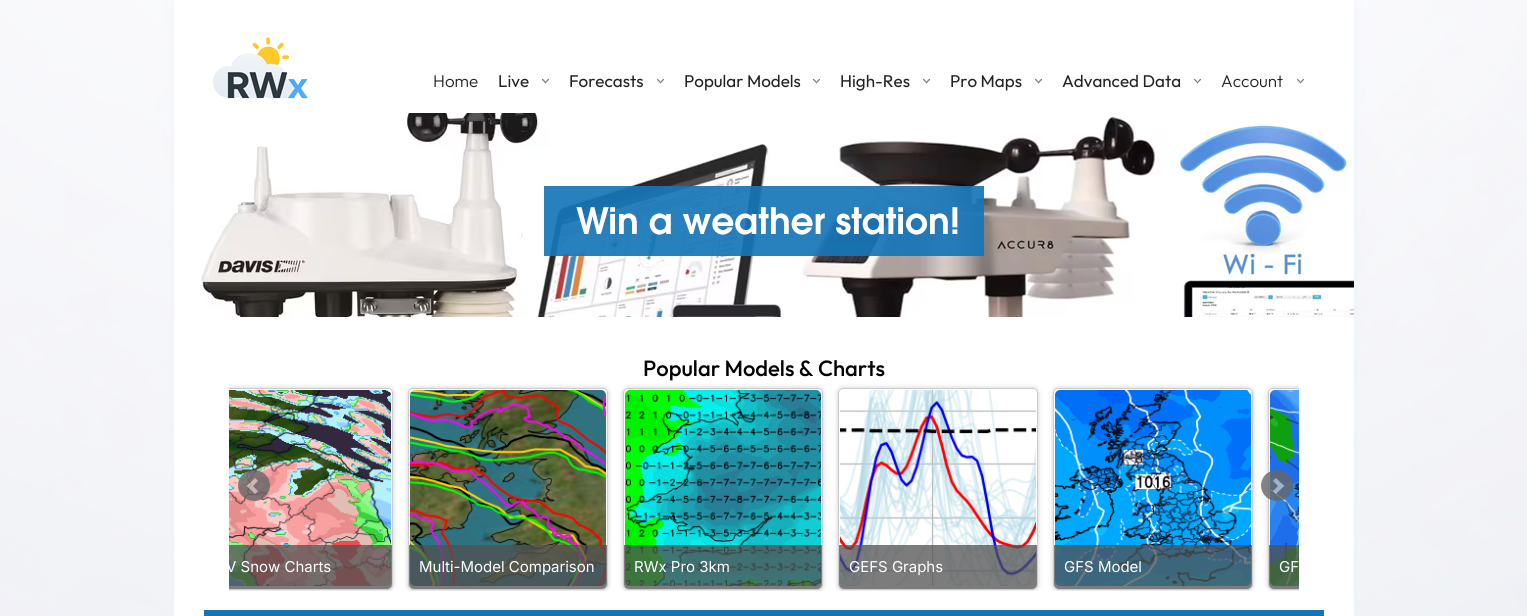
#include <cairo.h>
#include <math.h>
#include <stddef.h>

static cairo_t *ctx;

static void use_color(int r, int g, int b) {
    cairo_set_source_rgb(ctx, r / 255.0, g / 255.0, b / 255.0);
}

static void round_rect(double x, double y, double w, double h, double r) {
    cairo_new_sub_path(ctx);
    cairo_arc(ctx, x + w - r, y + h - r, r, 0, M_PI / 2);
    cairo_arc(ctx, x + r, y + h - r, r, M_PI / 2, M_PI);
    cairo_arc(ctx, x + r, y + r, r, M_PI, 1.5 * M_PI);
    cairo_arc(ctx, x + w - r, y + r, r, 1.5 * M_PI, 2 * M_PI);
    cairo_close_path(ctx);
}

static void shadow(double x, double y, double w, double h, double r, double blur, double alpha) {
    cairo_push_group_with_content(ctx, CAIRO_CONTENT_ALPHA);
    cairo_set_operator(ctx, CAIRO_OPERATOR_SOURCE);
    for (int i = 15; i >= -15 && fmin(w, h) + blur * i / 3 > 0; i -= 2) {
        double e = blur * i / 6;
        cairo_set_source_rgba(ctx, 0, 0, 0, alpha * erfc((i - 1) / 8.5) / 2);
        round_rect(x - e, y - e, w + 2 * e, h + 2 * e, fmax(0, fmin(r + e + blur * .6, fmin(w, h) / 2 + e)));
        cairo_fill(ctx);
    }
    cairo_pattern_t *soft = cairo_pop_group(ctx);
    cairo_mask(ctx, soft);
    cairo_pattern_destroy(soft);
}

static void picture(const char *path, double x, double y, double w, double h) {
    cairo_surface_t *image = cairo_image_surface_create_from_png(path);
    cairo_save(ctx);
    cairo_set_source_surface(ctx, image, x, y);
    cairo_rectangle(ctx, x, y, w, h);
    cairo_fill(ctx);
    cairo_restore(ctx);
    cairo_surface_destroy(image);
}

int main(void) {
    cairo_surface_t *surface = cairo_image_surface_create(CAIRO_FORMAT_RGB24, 1527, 616);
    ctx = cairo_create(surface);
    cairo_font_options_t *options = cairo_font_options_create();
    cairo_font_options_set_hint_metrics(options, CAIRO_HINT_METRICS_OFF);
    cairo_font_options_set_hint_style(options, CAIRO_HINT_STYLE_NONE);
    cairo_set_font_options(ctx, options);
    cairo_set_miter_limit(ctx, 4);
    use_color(255, 255, 255);
    cairo_paint(ctx);
    picture("img1.png", 0, 0, 1527, 616);
    use_color(236, 242, 253);
    shadow(174, 8, 1180, 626, 0, 6, 1);
    use_color(255, 255, 255);
    cairo_rectangle(ctx, 174, 0, 1180, 616);
    cairo_fill(ctx);
    picture("img2.png", 213, 37, 95, 62);
    cairo_select_font_face(ctx, "Outfit Light", CAIRO_FONT_SLANT_NORMAL, CAIRO_FONT_WEIGHT_NORMAL);
    cairo_set_font_size(ctx, 17);
    use_color(34, 34, 34);
    cairo_move_to(ctx, 433, 87);
    cairo_show_text(ctx, "Home");
    picture("img3.png", 542, 79, 7, 5);
    cairo_select_font_face(ctx, "Outfit", CAIRO_FONT_SLANT_NORMAL, CAIRO_FONT_WEIGHT_NORMAL);
    cairo_move_to(ctx, 498, 87);
    cairo_show_text(ctx, "Live");
    picture("img3.png", 657, 79, 7, 5);
    cairo_move_to(ctx, 569, 87);
    cairo_show_text(ctx, "Forecasts");
    picture("img3.png", 813, 79, 7, 5);
    cairo_move_to(ctx, 684, 87);
    cairo_show_text(ctx, "Popular Models");
    picture("img3.png", 923, 79, 7, 5);
    cairo_move_to(ctx, 840, 87);
    cairo_show_text(ctx, "High-Res");
    picture("img3.png", 1035, 79, 7, 5);
    cairo_move_to(ctx, 950, 87);
    cairo_show_text(ctx, "Pro Maps");
    picture("img3.png", 1194, 79, 7, 5);
    cairo_move_to(ctx, 1062, 87);
    cairo_show_text(ctx, "Advanced Data");
    picture("img3.png", 1297, 79, 7, 5);
    cairo_select_font_face(ctx, "Outfit Light", CAIRO_FONT_SLANT_NORMAL, CAIRO_FONT_WEIGHT_NORMAL);
    cairo_move_to(ctx, 1221, 87);
    cairo_show_text(ctx, "Account");
    picture("img4.png", 201, 113, 1153, 204);
    cairo_select_font_face(ctx, "Outfit Medium", CAIRO_FONT_SLANT_NORMAL, CAIRO_FONT_WEIGHT_NORMAL);
    cairo_set_font_size(ctx, 22);
    use_color(0, 0, 0);
    cairo_move_to(ctx, 643, 376);
    cairo_show_text(ctx, "Popular Models & Charts");
    cairo_save(ctx);
    cairo_rectangle(ctx, 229, 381, 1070, 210);
    cairo_clip(ctx);
    cairo_set_fill_rule(ctx, CAIRO_FILL_RULE_EVEN_ODD);
    cairo_new_path(ctx);
    cairo_move_to(ctx, 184, 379);
    cairo_line_to(ctx, 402, 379);
    cairo_line_to(ctx, 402, 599);
    cairo_line_to(ctx, 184, 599);
    cairo_close_path(ctx);
    cairo_move_to(ctx, 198, 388);
    cairo_line_to(ctx, 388, 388);
    cairo_curve_to(ctx, 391, 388, 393, 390, 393, 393);
    cairo_line_to(ctx, 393, 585);
    cairo_curve_to(ctx, 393, 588, 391, 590, 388, 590);
    cairo_line_to(ctx, 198, 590);
    cairo_curve_to(ctx, 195, 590, 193, 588, 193, 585);
    cairo_line_to(ctx, 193, 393);
    cairo_curve_to(ctx, 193, 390, 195, 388, 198, 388);
    cairo_close_path(ctx);
    cairo_clip(ctx);
    use_color(204, 204, 204);
    shadow(193, 388, 200, 202, 5, 2.5, 1);
    cairo_restore(ctx);
    cairo_save(ctx);
    cairo_rectangle(ctx, 229, 381, 1070, 210);
    cairo_clip(ctx);
    round_rect(193.5, 388.5, 199, 201, 4.5);
    use_color(204, 204, 204);
    cairo_set_line_width(ctx, 1);
    cairo_stroke(ctx);
    cairo_restore(ctx);
    picture("img7.png", 229, 390, 162, 196);
    picture("img5.png", 238, 470, 32, 31);
    cairo_save(ctx);
    cairo_rectangle(ctx, 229, 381, 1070, 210);
    cairo_clip(ctx);
    cairo_set_fill_rule(ctx, CAIRO_FILL_RULE_EVEN_ODD);
    cairo_new_path(ctx);
    cairo_move_to(ctx, 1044, 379);
    cairo_line_to(ctx, 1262, 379);
    cairo_line_to(ctx, 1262, 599);
    cairo_line_to(ctx, 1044, 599);
    cairo_close_path(ctx);
    cairo_move_to(ctx, 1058, 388);
    cairo_line_to(ctx, 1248, 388);
    cairo_curve_to(ctx, 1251, 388, 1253, 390, 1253, 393);
    cairo_line_to(ctx, 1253, 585);
    cairo_curve_to(ctx, 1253, 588, 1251, 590, 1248, 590);
    cairo_line_to(ctx, 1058, 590);
    cairo_curve_to(ctx, 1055, 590, 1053, 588, 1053, 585);
    cairo_line_to(ctx, 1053, 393);
    cairo_curve_to(ctx, 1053, 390, 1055, 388, 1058, 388);
    cairo_close_path(ctx);
    cairo_clip(ctx);
    use_color(204, 204, 204);
    shadow(1053, 388, 200, 202, 5, 2.5, 1);
    cairo_restore(ctx);
    cairo_save(ctx);
    cairo_rectangle(ctx, 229, 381, 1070, 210);
    cairo_clip(ctx);
    cairo_set_fill_rule(ctx, CAIRO_FILL_RULE_EVEN_ODD);
    cairo_new_path(ctx);
    cairo_move_to(ctx, 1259, 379);
    cairo_line_to(ctx, 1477, 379);
    cairo_line_to(ctx, 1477, 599);
    cairo_line_to(ctx, 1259, 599);
    cairo_close_path(ctx);
    cairo_move_to(ctx, 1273, 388);
    cairo_line_to(ctx, 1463, 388);
    cairo_curve_to(ctx, 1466, 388, 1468, 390, 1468, 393);
    cairo_line_to(ctx, 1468, 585);
    cairo_curve_to(ctx, 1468, 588, 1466, 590, 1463, 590);
    cairo_line_to(ctx, 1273, 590);
    cairo_curve_to(ctx, 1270, 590, 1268, 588, 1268, 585);
    cairo_line_to(ctx, 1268, 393);
    cairo_curve_to(ctx, 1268, 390, 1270, 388, 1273, 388);
    cairo_close_path(ctx);
    cairo_clip(ctx);
    use_color(204, 204, 204);
    shadow(1268, 388, 200, 202, 5, 2.5, 1);
    cairo_restore(ctx);
    cairo_save(ctx);
    cairo_rectangle(ctx, 229, 381, 1070, 210);
    cairo_clip(ctx);
    round_rect(1268.5, 388.5, 199, 201, 4.5);
    use_color(204, 204, 204);
    cairo_set_line_width(ctx, 1);
    cairo_stroke(ctx);
    cairo_restore(ctx);
    picture("img12.png", 1270, 390, 29, 196);
    picture("img6.png", 1261, 470, 32, 31);
    cairo_set_source_rgba(ctx, 0.314, 0.314, 0.314, 0.75);
    cairo_new_path(ctx);
    cairo_move_to(ctx, 229, 545);
    cairo_line_to(ctx, 392, 545);
    cairo_line_to(ctx, 392, 584);
    cairo_curve_to(ctx, 392, 587, 390, 589, 387, 589);
    cairo_line_to(ctx, 229, 589);
    cairo_close_path(ctx);
    cairo_fill(ctx);
    cairo_save(ctx);
    cairo_rectangle(ctx, 229, 381, 1070, 210);
    cairo_clip(ctx);
    cairo_select_font_face(ctx, "Inter", CAIRO_FONT_SLANT_NORMAL, CAIRO_FONT_WEIGHT_NORMAL);
    cairo_set_font_size(ctx, 15);
    use_color(255, 255, 255);
    cairo_move_to(ctx, 226, 572);
    cairo_show_text(ctx, "V Snow Charts");
    cairo_restore(ctx);
    cairo_save(ctx);
    cairo_rectangle(ctx, 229, 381, 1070, 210);
    cairo_clip(ctx);
    cairo_set_fill_rule(ctx, CAIRO_FILL_RULE_EVEN_ODD);
    cairo_new_path(ctx);
    cairo_move_to(ctx, 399, 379);
    cairo_line_to(ctx, 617, 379);
    cairo_line_to(ctx, 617, 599);
    cairo_line_to(ctx, 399, 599);
    cairo_close_path(ctx);
    cairo_move_to(ctx, 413, 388);
    cairo_line_to(ctx, 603, 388);
    cairo_curve_to(ctx, 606, 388, 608, 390, 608, 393);
    cairo_line_to(ctx, 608, 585);
    cairo_curve_to(ctx, 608, 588, 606, 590, 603, 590);
    cairo_line_to(ctx, 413, 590);
    cairo_curve_to(ctx, 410, 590, 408, 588, 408, 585);
    cairo_line_to(ctx, 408, 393);
    cairo_curve_to(ctx, 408, 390, 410, 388, 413, 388);
    cairo_close_path(ctx);
    cairo_clip(ctx);
    use_color(204, 204, 204);
    shadow(408, 388, 200, 202, 5, 2.5, 1);
    cairo_restore(ctx);
    round_rect(408.5, 388.5, 199, 201, 4.5);
    use_color(204, 204, 204);
    cairo_set_line_width(ctx, 1);
    cairo_stroke(ctx);
    picture("img8.png", 410, 390, 196, 196);
    cairo_set_source_rgba(ctx, 0.314, 0.314, 0.314, 0.75);
    cairo_new_path(ctx);
    cairo_move_to(ctx, 409, 545);
    cairo_line_to(ctx, 607, 545);
    cairo_line_to(ctx, 607, 584);
    cairo_curve_to(ctx, 607, 587, 605, 589, 602, 589);
    cairo_line_to(ctx, 414, 589);
    cairo_curve_to(ctx, 411, 589, 409, 587, 409, 584);
    cairo_close_path(ctx);
    cairo_fill(ctx);
    cairo_select_font_face(ctx, "Inter", CAIRO_FONT_SLANT_NORMAL, CAIRO_FONT_WEIGHT_NORMAL);
    cairo_set_font_size(ctx, 15);
    use_color(255, 255, 255);
    cairo_move_to(ctx, 419, 572);
    cairo_show_text(ctx, "Multi-Model Comparison");
    cairo_save(ctx);
    cairo_rectangle(ctx, 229, 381, 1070, 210);
    cairo_clip(ctx);
    cairo_set_fill_rule(ctx, CAIRO_FILL_RULE_EVEN_ODD);
    cairo_new_path(ctx);
    cairo_move_to(ctx, 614, 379);
    cairo_line_to(ctx, 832, 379);
    cairo_line_to(ctx, 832, 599);
    cairo_line_to(ctx, 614, 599);
    cairo_close_path(ctx);
    cairo_move_to(ctx, 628, 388);
    cairo_line_to(ctx, 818, 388);
    cairo_curve_to(ctx, 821, 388, 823, 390, 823, 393);
    cairo_line_to(ctx, 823, 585);
    cairo_curve_to(ctx, 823, 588, 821, 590, 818, 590);
    cairo_line_to(ctx, 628, 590);
    cairo_curve_to(ctx, 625, 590, 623, 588, 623, 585);
    cairo_line_to(ctx, 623, 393);
    cairo_curve_to(ctx, 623, 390, 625, 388, 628, 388);
    cairo_close_path(ctx);
    cairo_clip(ctx);
    use_color(204, 204, 204);
    shadow(623, 388, 200, 202, 5, 2.5, 1);
    cairo_restore(ctx);
    round_rect(623.5, 388.5, 199, 201, 4.5);
    use_color(204, 204, 204);
    cairo_stroke(ctx);
    picture("img9.png", 625, 390, 196, 196);
    cairo_set_source_rgba(ctx, 0.314, 0.314, 0.314, 0.75);
    cairo_new_path(ctx);
    cairo_move_to(ctx, 624, 545);
    cairo_line_to(ctx, 822, 545);
    cairo_line_to(ctx, 822, 584);
    cairo_curve_to(ctx, 822, 587, 820, 589, 817, 589);
    cairo_line_to(ctx, 629, 589);
    cairo_curve_to(ctx, 626, 589, 624, 587, 624, 584);
    cairo_close_path(ctx);
    cairo_fill(ctx);
    use_color(255, 255, 255);
    cairo_move_to(ctx, 634, 572);
    cairo_show_text(ctx, "RWx Pro 3km");
    cairo_save(ctx);
    cairo_rectangle(ctx, 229, 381, 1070, 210);
    cairo_clip(ctx);
    cairo_set_fill_rule(ctx, CAIRO_FILL_RULE_EVEN_ODD);
    cairo_new_path(ctx);
    cairo_move_to(ctx, 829, 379);
    cairo_line_to(ctx, 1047, 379);
    cairo_line_to(ctx, 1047, 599);
    cairo_line_to(ctx, 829, 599);
    cairo_close_path(ctx);
    cairo_move_to(ctx, 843, 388);
    cairo_line_to(ctx, 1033, 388);
    cairo_curve_to(ctx, 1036, 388, 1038, 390, 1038, 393);
    cairo_line_to(ctx, 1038, 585);
    cairo_curve_to(ctx, 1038, 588, 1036, 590, 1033, 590);
    cairo_line_to(ctx, 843, 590);
    cairo_curve_to(ctx, 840, 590, 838, 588, 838, 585);
    cairo_line_to(ctx, 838, 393);
    cairo_curve_to(ctx, 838, 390, 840, 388, 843, 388);
    cairo_close_path(ctx);
    cairo_clip(ctx);
    use_color(204, 204, 204);
    shadow(838, 388, 200, 202, 5, 2.5, 1);
    cairo_restore(ctx);
    round_rect(838.5, 388.5, 199, 201, 4.5);
    use_color(204, 204, 204);
    cairo_stroke(ctx);
    picture("img10.png", 840, 390, 196, 196);
    cairo_set_source_rgba(ctx, 0.314, 0.314, 0.314, 0.75);
    cairo_new_path(ctx);
    cairo_move_to(ctx, 839, 545);
    cairo_line_to(ctx, 1037, 545);
    cairo_line_to(ctx, 1037, 584);
    cairo_curve_to(ctx, 1037, 587, 1035, 589, 1032, 589);
    cairo_line_to(ctx, 844, 589);
    cairo_curve_to(ctx, 841, 589, 839, 587, 839, 584);
    cairo_close_path(ctx);
    cairo_fill(ctx);
    use_color(255, 255, 255);
    cairo_move_to(ctx, 849, 572);
    cairo_show_text(ctx, "GEFS Graphs");
    round_rect(1053.5, 388.5, 199, 201, 4.5);
    use_color(204, 204, 204);
    cairo_stroke(ctx);
    picture("img11.png", 1055, 390, 196, 196);
    cairo_set_source_rgba(ctx, 0.314, 0.314, 0.314, 0.75);
    cairo_new_path(ctx);
    cairo_move_to(ctx, 1054, 545);
    cairo_line_to(ctx, 1252, 545);
    cairo_line_to(ctx, 1252, 584);
    cairo_curve_to(ctx, 1252, 587, 1250, 589, 1247, 589);
    cairo_line_to(ctx, 1059, 589);
    cairo_curve_to(ctx, 1056, 589, 1054, 587, 1054, 584);
    cairo_close_path(ctx);
    cairo_fill(ctx);
    use_color(255, 255, 255);
    cairo_move_to(ctx, 1064, 572);
    cairo_show_text(ctx, "GFS Model");
    cairo_set_source_rgba(ctx, 0.314, 0.314, 0.314, 0.75);
    cairo_new_path(ctx);
    cairo_move_to(ctx, 1269, 545);
    cairo_line_to(ctx, 1299, 545);
    cairo_line_to(ctx, 1299, 589);
    cairo_line_to(ctx, 1274, 589);
    cairo_curve_to(ctx, 1271, 589, 1269, 587, 1269, 584);
    cairo_close_path(ctx);
    cairo_fill(ctx);
    use_color(255, 255, 255);
    cairo_move_to(ctx, 1279, 572);
    cairo_show_text(ctx, "GF");
    use_color(22, 117, 183);
    cairo_rectangle(ctx, 204, 610, 1120, 6);
    cairo_fill(ctx);
    cairo_surface_write_to_png(surface, "result.png");
    cairo_font_options_destroy(options);
    cairo_destroy(ctx);
    cairo_surface_destroy(surface);
    return 0;
}
